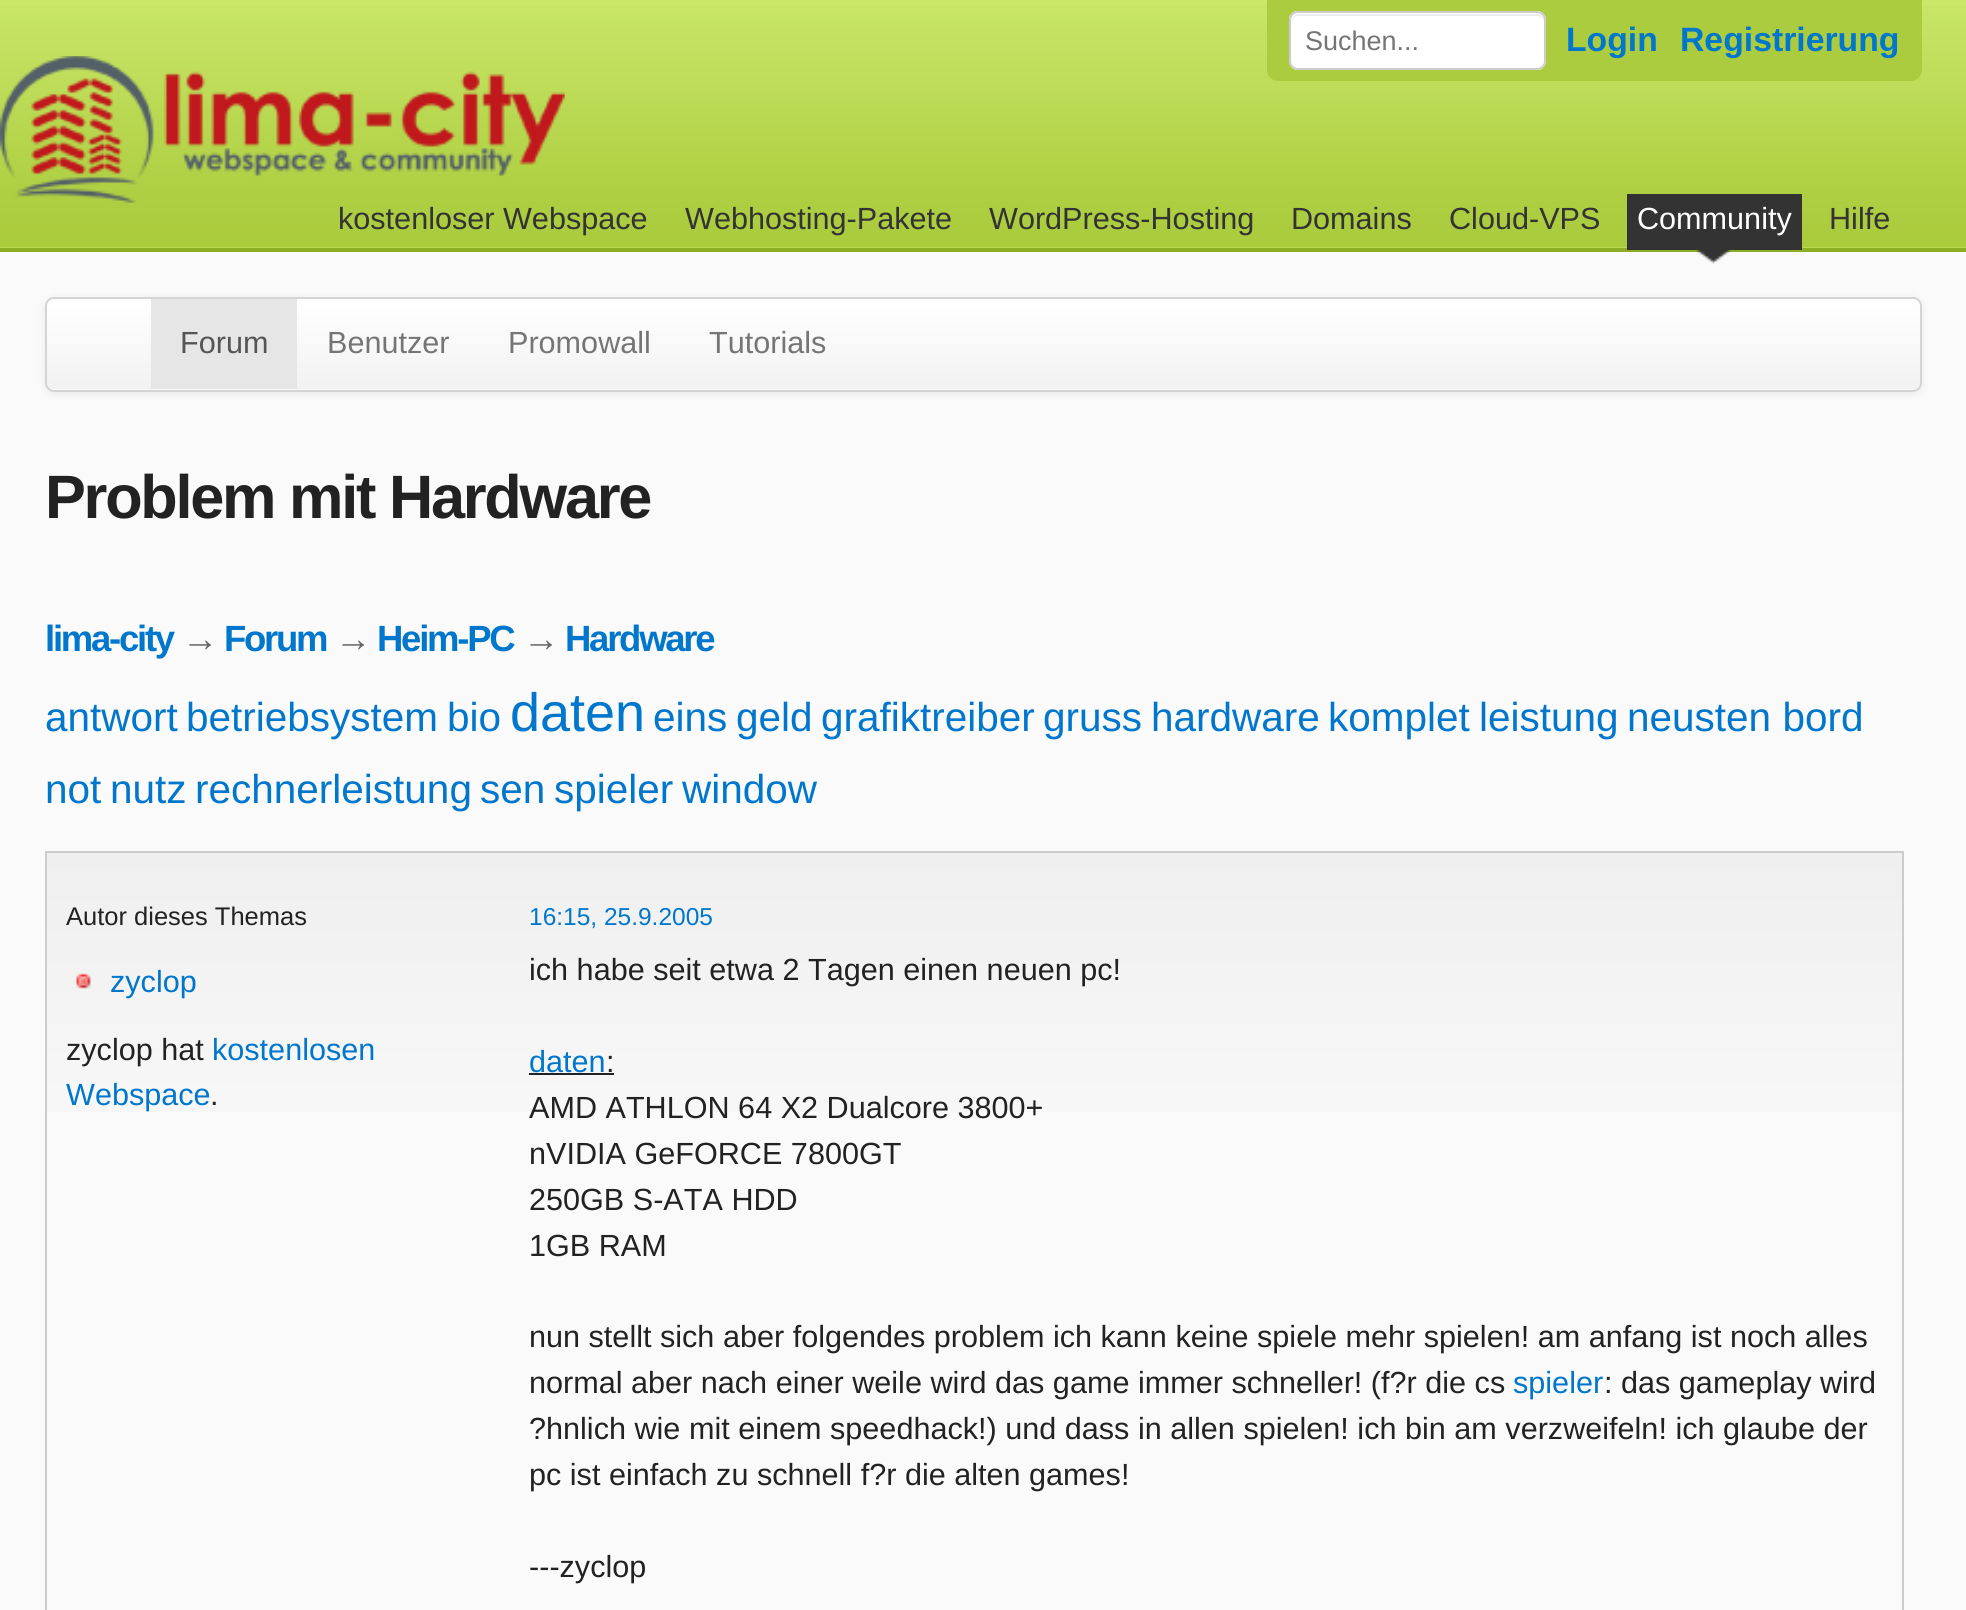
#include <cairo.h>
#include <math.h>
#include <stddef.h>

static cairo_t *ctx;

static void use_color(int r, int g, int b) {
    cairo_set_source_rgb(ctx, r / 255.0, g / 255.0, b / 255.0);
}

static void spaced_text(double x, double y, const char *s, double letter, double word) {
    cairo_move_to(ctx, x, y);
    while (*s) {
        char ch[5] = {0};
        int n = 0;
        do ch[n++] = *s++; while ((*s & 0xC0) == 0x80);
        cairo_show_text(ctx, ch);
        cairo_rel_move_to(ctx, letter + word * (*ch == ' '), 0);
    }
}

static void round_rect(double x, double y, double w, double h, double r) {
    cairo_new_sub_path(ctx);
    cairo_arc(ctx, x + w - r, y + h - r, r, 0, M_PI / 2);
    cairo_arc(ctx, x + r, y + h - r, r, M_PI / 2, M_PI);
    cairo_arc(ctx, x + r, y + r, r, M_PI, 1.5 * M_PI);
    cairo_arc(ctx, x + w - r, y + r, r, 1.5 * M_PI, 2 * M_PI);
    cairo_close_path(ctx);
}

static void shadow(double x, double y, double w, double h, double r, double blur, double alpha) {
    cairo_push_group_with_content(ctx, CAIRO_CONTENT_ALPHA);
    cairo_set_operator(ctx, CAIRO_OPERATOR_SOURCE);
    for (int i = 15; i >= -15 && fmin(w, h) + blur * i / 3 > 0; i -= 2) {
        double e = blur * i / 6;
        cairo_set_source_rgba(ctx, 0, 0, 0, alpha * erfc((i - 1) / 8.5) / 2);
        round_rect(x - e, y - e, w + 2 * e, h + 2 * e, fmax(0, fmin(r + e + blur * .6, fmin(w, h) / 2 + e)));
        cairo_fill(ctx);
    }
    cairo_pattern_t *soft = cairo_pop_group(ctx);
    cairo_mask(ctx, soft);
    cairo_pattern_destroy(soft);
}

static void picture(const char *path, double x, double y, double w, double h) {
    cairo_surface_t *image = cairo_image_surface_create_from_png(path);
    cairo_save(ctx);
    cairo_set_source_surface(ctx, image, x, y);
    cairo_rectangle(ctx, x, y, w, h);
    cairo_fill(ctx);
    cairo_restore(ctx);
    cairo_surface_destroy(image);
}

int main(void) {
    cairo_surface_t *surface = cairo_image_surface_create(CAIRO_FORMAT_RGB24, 1966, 1610);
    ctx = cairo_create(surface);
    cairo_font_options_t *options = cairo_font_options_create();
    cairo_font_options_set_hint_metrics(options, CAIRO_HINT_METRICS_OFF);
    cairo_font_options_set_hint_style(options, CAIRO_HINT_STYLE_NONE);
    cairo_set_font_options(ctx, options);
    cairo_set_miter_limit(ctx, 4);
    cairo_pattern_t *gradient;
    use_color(203, 232, 107);
    cairo_paint(ctx);
    picture("img1.png", 0, 6, 1966, 242);
    use_color(141, 173, 37);
    cairo_rectangle(ctx, 0, 248, 1966, 4);
    cairo_fill(ctx);
    use_color(171, 204, 62);
    cairo_new_path(ctx);
    cairo_move_to(ctx, 1267, 0);
    cairo_line_to(ctx, 1922, 0);
    cairo_line_to(ctx, 1922, 70);
    cairo_curve_to(ctx, 1922, 76, 1917, 81, 1911, 81);
    cairo_line_to(ctx, 1278, 81);
    cairo_curve_to(ctx, 1272, 81, 1267, 76, 1267, 70);
    cairo_close_path(ctx);
    cairo_fill(ctx);
    use_color(255, 255, 255);
    round_rect(1289, 11, 257, 59, 9);
    cairo_fill(ctx);
    use_color(236, 236, 236);
    cairo_new_path(ctx);
    cairo_move_to(ctx, 1298, 16);
    cairo_line_to(ctx, 1537, 16);
    cairo_curve_to(ctx, 1540, 16, 1544, 19, 1544, 22);
    cairo_line_to(ctx, 1544, 21);
    cairo_curve_to(ctx, 1544, 17, 1541, 14, 1537, 14);
    cairo_line_to(ctx, 1299, 14);
    cairo_curve_to(ctx, 1295, 14, 1292, 17, 1292, 21);
    cairo_line_to(ctx, 1292, 22);
    cairo_curve_to(ctx, 1292, 19, 1295, 16, 1298, 16);
    cairo_close_path(ctx);
    cairo_fill(ctx);
    round_rect(1290, 12, 255, 57, 8);
    use_color(204, 204, 204);
    cairo_stroke(ctx);
    cairo_select_font_face(ctx, "Liberation Sans", CAIRO_FONT_SLANT_NORMAL, CAIRO_FONT_WEIGHT_NORMAL);
    cairo_set_font_size(ctx, 27);
    use_color(117, 117, 117);
    cairo_move_to(ctx, 1305, 50);
    cairo_show_text(ctx, "Suchen...");
    cairo_select_font_face(ctx, "Liberation Sans", CAIRO_FONT_SLANT_NORMAL, CAIRO_FONT_WEIGHT_BOLD);
    cairo_set_font_size(ctx, 33.75);
    use_color(0, 119, 204);
    cairo_move_to(ctx, 1566, 51);
    cairo_show_text(ctx, "Login");
    cairo_move_to(ctx, 1680, 51);
    cairo_show_text(ctx, "Registrierung");
    picture("img2.png", 0, 56, 565, 147);
    cairo_select_font_face(ctx, "Liberation Sans", CAIRO_FONT_SLANT_NORMAL, CAIRO_FONT_WEIGHT_NORMAL);
    cairo_set_font_size(ctx, 30.6);
    use_color(51, 51, 51);
    cairo_move_to(ctx, 338, 229);
    cairo_show_text(ctx, "kostenloser Webspace");
    cairo_move_to(ctx, 685, 229);
    cairo_show_text(ctx, "Webhosting-Pakete");
    cairo_move_to(ctx, 989, 229);
    cairo_show_text(ctx, "WordPress-Hosting");
    cairo_move_to(ctx, 1291, 229);
    cairo_show_text(ctx, "Domains");
    cairo_move_to(ctx, 1449, 229);
    cairo_show_text(ctx, "Cloud-VPS");
    use_color(250, 250, 250);
    cairo_rectangle(ctx, 0, 252, 1966, 1358);
    cairo_fill(ctx);
    picture("img3.png", 1696, 250, 35, 14);
    use_color(51, 51, 51);
    cairo_rectangle(ctx, 1627, 194, 175, 56);
    cairo_fill(ctx);
    use_color(255, 255, 255);
    cairo_move_to(ctx, 1637, 229);
    cairo_show_text(ctx, "Community");
    use_color(51, 51, 51);
    cairo_move_to(ctx, 1829, 229);
    cairo_show_text(ctx, "Hilfe");
    use_color(0, 0, 0);
    shadow(45, 299, 1877, 95, 9, 4.5, 0.07);
    use_color(249, 249, 249);
    round_rect(45, 297, 1877, 95, 9);
    cairo_fill(ctx);
    cairo_save(ctx);
    round_rect(45, 297, 1877, 95, 9);
    cairo_clip(ctx);
    gradient = cairo_pattern_create_linear(983, 299, 983, 389);
    cairo_pattern_add_color_stop_rgba(gradient, 0, 1, 1, 1, 1);
    cairo_pattern_add_color_stop_rgba(gradient, 1, 0.949, 0.949, 0.949, 1);
    cairo_set_source(ctx, gradient);
    cairo_pattern_destroy(gradient);
    cairo_rectangle(ctx, 45, 299, 1877, 90);
    cairo_fill(ctx);
    cairo_restore(ctx);
    round_rect(46, 298, 1875, 93, 8);
    use_color(212, 212, 212);
    cairo_stroke(ctx);
    use_color(230, 230, 230);
    cairo_rectangle(ctx, 151, 299, 146, 90);
    cairo_fill(ctx);
    use_color(85, 85, 85);
    cairo_move_to(ctx, 180, 353);
    cairo_show_text(ctx, "Forum");
    use_color(117, 117, 117);
    cairo_move_to(ctx, 327, 353);
    cairo_show_text(ctx, "Benutzer");
    cairo_move_to(ctx, 508, 353);
    cairo_show_text(ctx, "Promowall");
    cairo_move_to(ctx, 709, 353);
    cairo_show_text(ctx, "Tutorials");
    cairo_select_font_face(ctx, "Liberation Sans", CAIRO_FONT_SLANT_NORMAL, CAIRO_FONT_WEIGHT_BOLD);
    cairo_set_font_size(ctx, 61.25);
    use_color(34, 34, 34);
    spaced_text(45, 518, "Problem mit Hardware", -2.25, 0);
    cairo_set_font_size(ctx, 36.5);
    use_color(0, 119, 204);
    spaced_text(45, 651, "lima-city", -2.25, 0);
    use_color(102, 102, 102);
    spaced_text(182, 651, "→", -2.25, 0);
    use_color(0, 119, 204);
    spaced_text(224, 651, "Forum", -2.25, 0);
    use_color(102, 102, 102);
    spaced_text(335, 651, "→", -2.25, 0);
    use_color(0, 119, 204);
    spaced_text(377, 651, "Heim-PC", -2.25, 0);
    use_color(102, 102, 102);
    spaced_text(523, 651, "→", -2.25, 0);
    use_color(0, 119, 204);
    spaced_text(565, 651, "Hardware", -2.25, 0);
    cairo_select_font_face(ctx, "Liberation Sans", CAIRO_FONT_SLANT_NORMAL, CAIRO_FONT_WEIGHT_NORMAL);
    cairo_set_font_size(ctx, 40.5);
    cairo_move_to(ctx, 45, 731);
    cairo_show_text(ctx, "antwort");
    cairo_move_to(ctx, 186, 731);
    cairo_show_text(ctx, "betriebsystem");
    cairo_move_to(ctx, 447, 731);
    cairo_show_text(ctx, "bio");
    cairo_set_font_size(ctx, 54);
    cairo_move_to(ctx, 510, 731);
    cairo_show_text(ctx, "daten");
    cairo_set_font_size(ctx, 40.5);
    cairo_move_to(ctx, 653, 731);
    cairo_show_text(ctx, "eins");
    cairo_move_to(ctx, 736, 731);
    cairo_show_text(ctx, "geld");
    cairo_move_to(ctx, 821, 731);
    cairo_show_text(ctx, "grafiktreiber");
    cairo_move_to(ctx, 1043, 731);
    cairo_show_text(ctx, "gruss");
    cairo_move_to(ctx, 1151, 731);
    cairo_show_text(ctx, "hardware");
    cairo_move_to(ctx, 1328, 731);
    cairo_show_text(ctx, "komplet");
    cairo_move_to(ctx, 1479, 731);
    cairo_show_text(ctx, "leistung");
    cairo_move_to(ctx, 1627, 731);
    cairo_show_text(ctx, "neusten bord");
    cairo_move_to(ctx, 45, 803);
    cairo_show_text(ctx, "not");
    cairo_move_to(ctx, 110, 803);
    cairo_show_text(ctx, "nutz");
    cairo_move_to(ctx, 195, 803);
    cairo_show_text(ctx, "rechnerleistung");
    cairo_move_to(ctx, 480, 803);
    cairo_show_text(ctx, "sen");
    cairo_move_to(ctx, 554, 803);
    cairo_show_text(ctx, "spieler");
    cairo_move_to(ctx, 682, 803);
    cairo_show_text(ctx, "window");
    gradient = cairo_pattern_create_linear(974, 853, 974, 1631);
    cairo_pattern_add_color_stop_rgba(gradient, 0, 0.937, 0.937, 0.937, 1);
    cairo_pattern_add_color_stop_rgba(gradient, 0.43, 0.98, 0.98, 0.98, 1);
    cairo_set_source(ctx, gradient);
    cairo_pattern_destroy(gradient);
    cairo_rectangle(ctx, 47, 853, 1855, 259);
    cairo_fill(ctx);
    cairo_rectangle(ctx, 46, 852, 1857, 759);
    use_color(204, 204, 204);
    cairo_stroke(ctx);
    cairo_set_font_size(ctx, 25.5);
    use_color(34, 34, 34);
    cairo_move_to(ctx, 66, 925);
    cairo_show_text(ctx, "Autor dieses Themas");
    picture("img4.png", 76, 973, 15, 16);
    cairo_set_font_size(ctx, 30.6);
    use_color(0, 119, 204);
    cairo_move_to(ctx, 110, 992);
    cairo_show_text(ctx, "zyclop");
    use_color(34, 34, 34);
    cairo_move_to(ctx, 66, 1060);
    cairo_show_text(ctx, "zyclop hat");
    use_color(0, 119, 204);
    cairo_move_to(ctx, 212, 1060);
    cairo_show_text(ctx, "kostenlosen");
    cairo_move_to(ctx, 66, 1105);
    cairo_show_text(ctx, "Webspace");
    use_color(34, 34, 34);
    cairo_move_to(ctx, 210, 1105);
    cairo_show_text(ctx, ".");
    cairo_set_font_size(ctx, 24.5);
    use_color(0, 119, 204);
    cairo_move_to(ctx, 529, 925);
    cairo_show_text(ctx, "16:15, 25.9.2005");
    cairo_set_font_size(ctx, 30.6);
    use_color(34, 34, 34);
    cairo_move_to(ctx, 529, 980);
    cairo_show_text(ctx, "ich habe seit etwa 2 Tagen einen neuen pc!");
    use_color(0, 119, 204);
    cairo_move_to(ctx, 529, 1072);
    cairo_show_text(ctx, "daten");
    use_color(34, 34, 34);
    cairo_move_to(ctx, 606, 1072);
    cairo_show_text(ctx, ":");
    cairo_rectangle(ctx, 529, 1073, 85, 2);
    cairo_fill(ctx);
    cairo_move_to(ctx, 529, 1118);
    cairo_show_text(ctx, "AMD ATHLON 64 X2 Dualcore 3800+");
    cairo_move_to(ctx, 529, 1164);
    cairo_show_text(ctx, "nVIDIA GeFORCE 7800GT");
    cairo_move_to(ctx, 529, 1210);
    cairo_show_text(ctx, "250GB S-ATA HDD");
    cairo_move_to(ctx, 529, 1256);
    cairo_show_text(ctx, "1GB RAM");
    cairo_move_to(ctx, 529, 1347);
    cairo_show_text(ctx, "nun stellt sich aber folgendes problem ich kann keine spiele mehr spielen! am anfang ist noch alles");
    cairo_move_to(ctx, 529, 1393);
    cairo_show_text(ctx, "normal aber nach einer weile wird das game immer schneller! (f?r die cs");
    use_color(0, 119, 204);
    cairo_move_to(ctx, 1513, 1393);
    cairo_show_text(ctx, "spieler");
    use_color(34, 34, 34);
    cairo_move_to(ctx, 1604, 1393);
    cairo_show_text(ctx, ": das gameplay wird");
    cairo_move_to(ctx, 529, 1439);
    cairo_show_text(ctx, "?hnlich wie mit einem speedhack!) und dass in allen spielen! ich bin am verzweifeln! ich glaube der");
    cairo_move_to(ctx, 529, 1485);
    cairo_show_text(ctx, "pc ist einfach zu schnell f?r die alten games!");
    cairo_move_to(ctx, 529, 1577);
    cairo_show_text(ctx, "---zyclop");
    cairo_surface_write_to_png(surface, "result.png");
    cairo_font_options_destroy(options);
    cairo_destroy(ctx);
    cairo_surface_destroy(surface);
    return 0;
}
